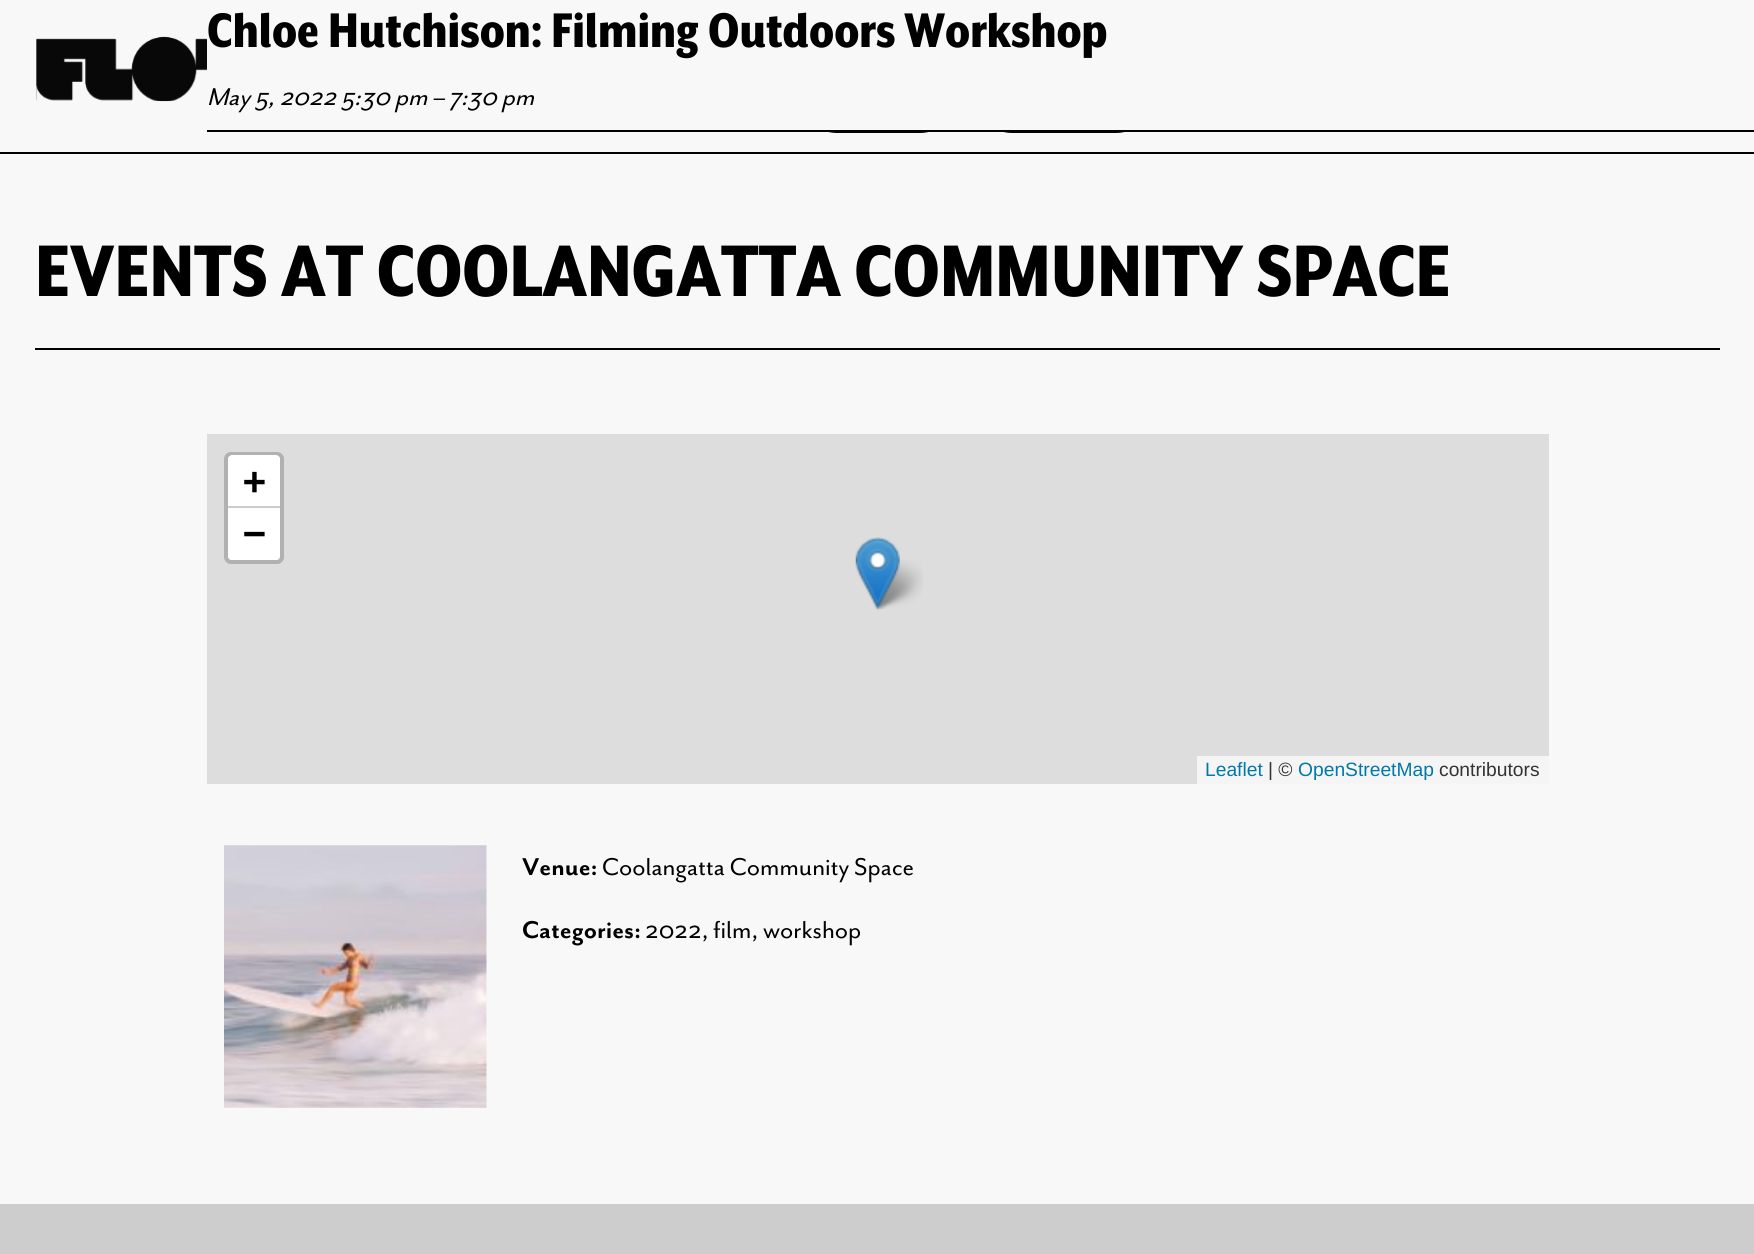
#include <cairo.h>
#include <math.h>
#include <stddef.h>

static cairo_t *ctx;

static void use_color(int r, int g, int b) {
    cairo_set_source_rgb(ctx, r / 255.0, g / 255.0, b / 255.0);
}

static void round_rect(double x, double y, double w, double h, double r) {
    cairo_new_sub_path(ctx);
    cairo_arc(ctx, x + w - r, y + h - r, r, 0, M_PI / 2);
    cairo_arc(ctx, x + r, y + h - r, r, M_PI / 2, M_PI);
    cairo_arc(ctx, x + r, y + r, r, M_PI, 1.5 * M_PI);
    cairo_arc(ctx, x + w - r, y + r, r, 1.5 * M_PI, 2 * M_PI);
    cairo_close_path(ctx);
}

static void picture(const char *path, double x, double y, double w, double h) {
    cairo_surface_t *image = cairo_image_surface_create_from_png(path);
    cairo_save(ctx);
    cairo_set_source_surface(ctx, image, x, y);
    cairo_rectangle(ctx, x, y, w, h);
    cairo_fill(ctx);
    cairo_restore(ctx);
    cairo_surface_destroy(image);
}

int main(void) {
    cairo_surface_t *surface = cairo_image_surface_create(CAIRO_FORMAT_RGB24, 1754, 1254);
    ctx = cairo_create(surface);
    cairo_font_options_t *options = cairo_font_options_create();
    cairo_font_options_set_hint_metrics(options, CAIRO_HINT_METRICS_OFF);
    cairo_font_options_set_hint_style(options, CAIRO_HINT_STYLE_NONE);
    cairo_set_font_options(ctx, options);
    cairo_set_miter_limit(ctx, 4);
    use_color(248, 248, 248);
    cairo_paint(ctx);
    round_rect(801, 20, 155, 112, 36);
    use_color(0, 0, 0);
    cairo_stroke(ctx);
    round_rect(976, 20, 176, 112, 36);
    cairo_stroke(ctx);
    use_color(248, 248, 248);
    cairo_rectangle(ctx, 800, 19, 353, 111);
    cairo_fill(ctx);
    use_color(0, 0, 0);
    cairo_rectangle(ctx, 207, 130, 1547, 2);
    cairo_fill(ctx);
    cairo_select_font_face(ctx, "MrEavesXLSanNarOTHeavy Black", CAIRO_FONT_SLANT_NORMAL, CAIRO_FONT_WEIGHT_NORMAL);
    cairo_set_font_size(ctx, 56);
    cairo_move_to(ctx, 207, 47);
    cairo_show_text(ctx, "Chloe Hutchison: Filming Outdoors Workshop");
    cairo_select_font_face(ctx, "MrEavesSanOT", CAIRO_FONT_SLANT_ITALIC, CAIRO_FONT_WEIGHT_NORMAL);
    cairo_set_font_size(ctx, 28);
    cairo_move_to(ctx, 207, 105);
    cairo_show_text(ctx, "May 5, 2022 5:30 pm – 7:30 pm");
    picture("img1.png", 224, 845, 263, 263);
    cairo_select_font_face(ctx, "MrEavesSanOT", CAIRO_FONT_SLANT_NORMAL, CAIRO_FONT_WEIGHT_BOLD);
    cairo_move_to(ctx, 522, 875);
    cairo_show_text(ctx, "Venue:");
    cairo_select_font_face(ctx, "MrEavesSanOT", CAIRO_FONT_SLANT_NORMAL, CAIRO_FONT_WEIGHT_NORMAL);
    cairo_move_to(ctx, 602, 875);
    cairo_show_text(ctx, "Coolangatta Community Space");
    cairo_select_font_face(ctx, "MrEavesSanOT", CAIRO_FONT_SLANT_NORMAL, CAIRO_FONT_WEIGHT_BOLD);
    cairo_move_to(ctx, 522, 938);
    cairo_show_text(ctx, "Categories:");
    cairo_select_font_face(ctx, "MrEavesSanOT", CAIRO_FONT_SLANT_NORMAL, CAIRO_FONT_WEIGHT_NORMAL);
    cairo_move_to(ctx, 645, 938);
    cairo_show_text(ctx, "2022, film, workshop");
    use_color(221, 221, 221);
    cairo_rectangle(ctx, 207, 434, 1342, 350);
    cairo_fill(ctx);
    round_rect(226, 454, 56, 108, 5);
    use_color(177, 177, 177);
    cairo_set_line_width(ctx, 4);
    cairo_stroke(ctx);
    use_color(255, 255, 255);
    cairo_new_path(ctx);
    cairo_move_to(ctx, 232, 455);
    cairo_line_to(ctx, 276, 455);
    cairo_curve_to(ctx, 278, 455, 280, 457, 280, 459);
    cairo_line_to(ctx, 280, 508);
    cairo_line_to(ctx, 228, 508);
    cairo_line_to(ctx, 228, 459);
    cairo_curve_to(ctx, 228, 457, 230, 455, 232, 455);
    cairo_close_path(ctx);
    cairo_fill(ctx);
    use_color(204, 204, 204);
    cairo_rectangle(ctx, 228, 506, 52, 2);
    cairo_fill(ctx);
    cairo_select_font_face(ctx, "DejaVu Sans Mono", CAIRO_FONT_SLANT_NORMAL, CAIRO_FONT_WEIGHT_BOLD);
    cairo_set_font_size(ctx, 38);
    use_color(0, 0, 0);
    cairo_move_to(ctx, 243, 494);
    cairo_show_text(ctx, "+");
    use_color(255, 255, 255);
    cairo_new_path(ctx);
    cairo_move_to(ctx, 228, 508);
    cairo_line_to(ctx, 280, 508);
    cairo_line_to(ctx, 280, 556);
    cairo_curve_to(ctx, 280, 558, 278, 560, 276, 560);
    cairo_line_to(ctx, 232, 560);
    cairo_curve_to(ctx, 230, 560, 228, 558, 228, 556);
    cairo_close_path(ctx);
    cairo_fill(ctx);
    use_color(0, 0, 0);
    cairo_move_to(ctx, 243, 546);
    cairo_show_text(ctx, "−");
    use_color(245, 245, 245);
    cairo_rectangle(ctx, 1197, 756, 352, 28);
    cairo_fill(ctx);
    cairo_select_font_face(ctx, "Liberation Sans", CAIRO_FONT_SLANT_NORMAL, CAIRO_FONT_WEIGHT_NORMAL);
    cairo_set_font_size(ctx, 19.25);
    use_color(0, 120, 168);
    cairo_move_to(ctx, 1205, 776);
    cairo_show_text(ctx, "Leaflet");
    use_color(51, 51, 51);
    cairo_move_to(ctx, 1268, 776);
    cairo_show_text(ctx, "| ©");
    use_color(0, 120, 168);
    cairo_move_to(ctx, 1298, 776);
    cairo_show_text(ctx, "OpenStreetMap");
    use_color(51, 51, 51);
    cairo_move_to(ctx, 1439, 776);
    cairo_show_text(ctx, "contributors");
    picture("img3.png", 871, 560, 52, 50);
    picture("img2.png", 855, 537, 45, 73);
    use_color(0, 0, 0);
    cairo_rectangle(ctx, 35, 348, 1685, 2);
    cairo_fill(ctx);
    cairo_select_font_face(ctx, "MrEavesXLSanNarOTHeavy Black", CAIRO_FONT_SLANT_NORMAL, CAIRO_FONT_WEIGHT_NORMAL);
    cairo_set_font_size(ctx, 84);
    cairo_move_to(ctx, 35, 296);
    cairo_show_text(ctx, "EVENTS AT COOLANGATTA COMMUNITY SPACE");
    cairo_rectangle(ctx, 0, 152, 1754, 2);
    cairo_fill(ctx);
    picture("img4.png", 36, 36, 171, 66);
    use_color(205, 205, 205);
    cairo_rectangle(ctx, 0, 1204, 1754, 50);
    cairo_fill(ctx);
    cairo_surface_write_to_png(surface, "result.png");
    cairo_font_options_destroy(options);
    cairo_destroy(ctx);
    cairo_surface_destroy(surface);
    return 0;
}
